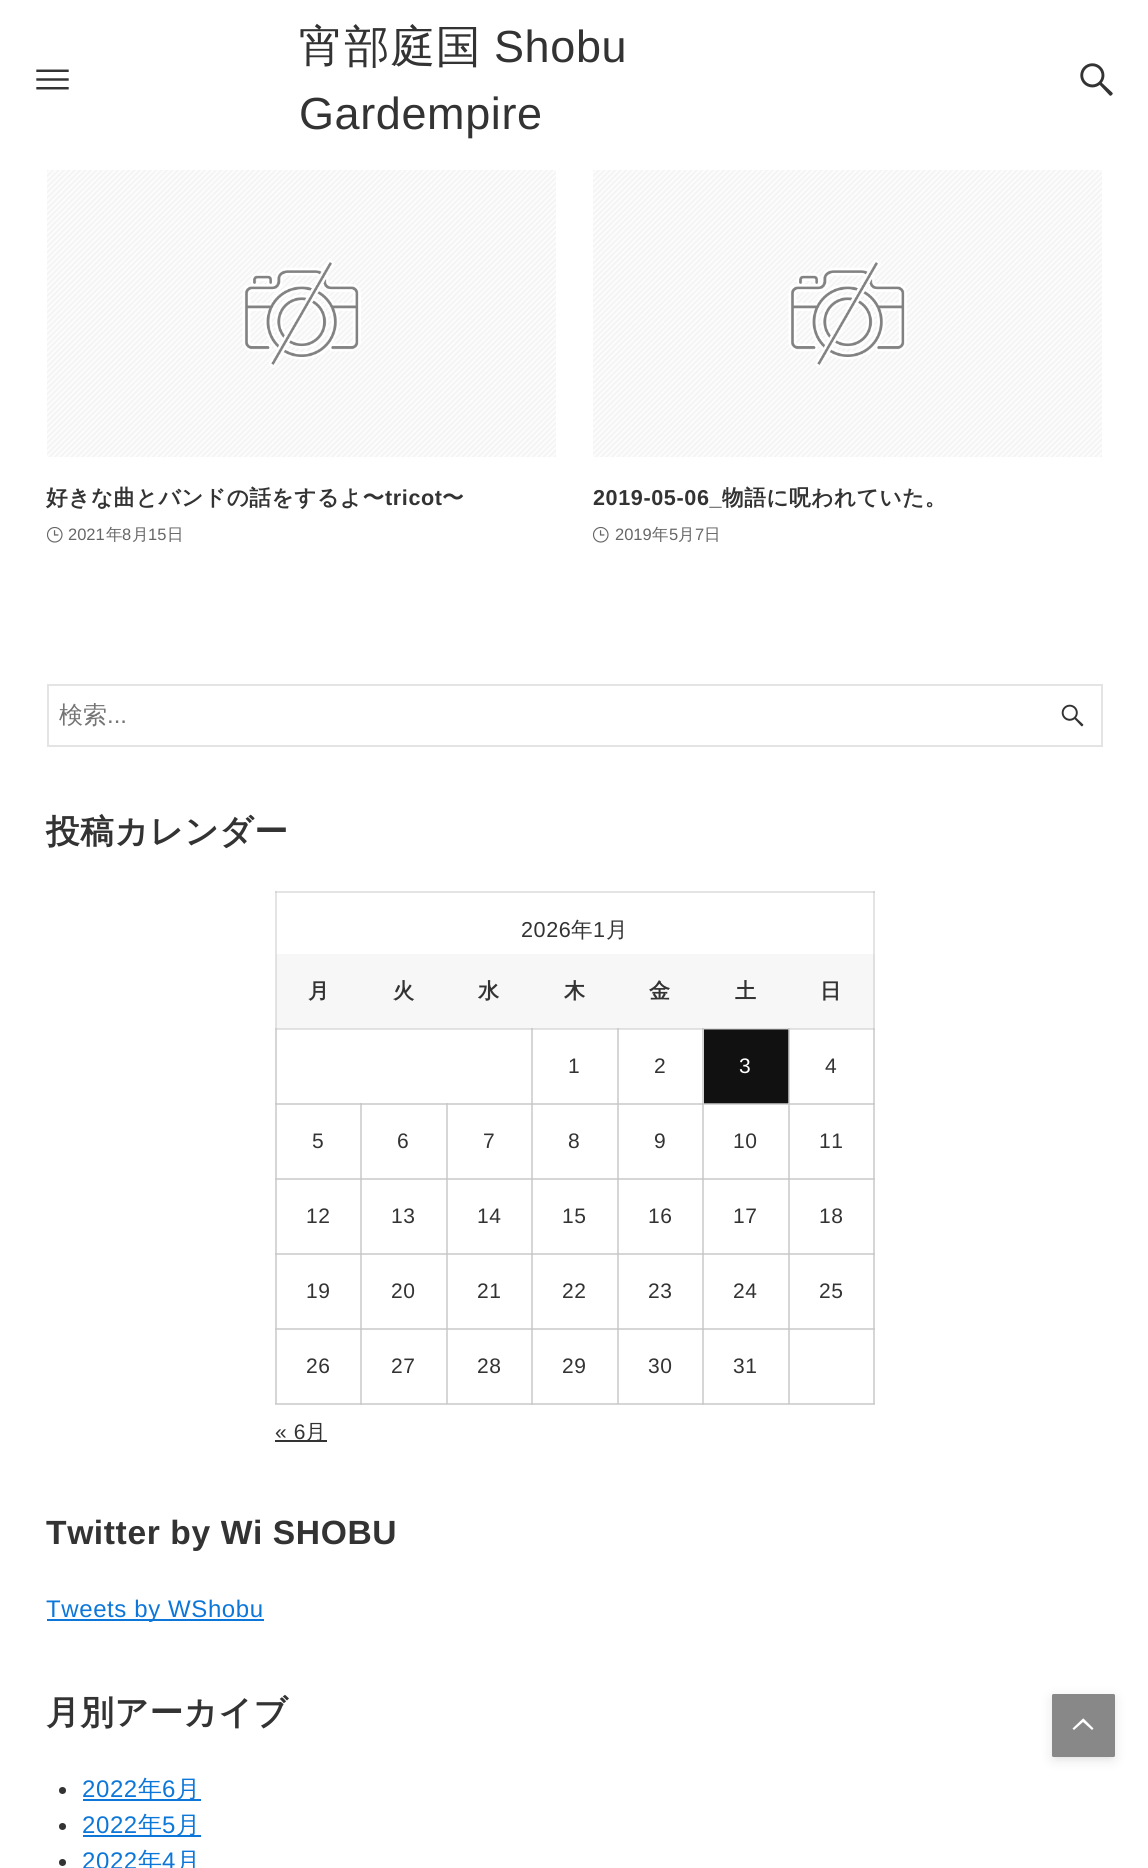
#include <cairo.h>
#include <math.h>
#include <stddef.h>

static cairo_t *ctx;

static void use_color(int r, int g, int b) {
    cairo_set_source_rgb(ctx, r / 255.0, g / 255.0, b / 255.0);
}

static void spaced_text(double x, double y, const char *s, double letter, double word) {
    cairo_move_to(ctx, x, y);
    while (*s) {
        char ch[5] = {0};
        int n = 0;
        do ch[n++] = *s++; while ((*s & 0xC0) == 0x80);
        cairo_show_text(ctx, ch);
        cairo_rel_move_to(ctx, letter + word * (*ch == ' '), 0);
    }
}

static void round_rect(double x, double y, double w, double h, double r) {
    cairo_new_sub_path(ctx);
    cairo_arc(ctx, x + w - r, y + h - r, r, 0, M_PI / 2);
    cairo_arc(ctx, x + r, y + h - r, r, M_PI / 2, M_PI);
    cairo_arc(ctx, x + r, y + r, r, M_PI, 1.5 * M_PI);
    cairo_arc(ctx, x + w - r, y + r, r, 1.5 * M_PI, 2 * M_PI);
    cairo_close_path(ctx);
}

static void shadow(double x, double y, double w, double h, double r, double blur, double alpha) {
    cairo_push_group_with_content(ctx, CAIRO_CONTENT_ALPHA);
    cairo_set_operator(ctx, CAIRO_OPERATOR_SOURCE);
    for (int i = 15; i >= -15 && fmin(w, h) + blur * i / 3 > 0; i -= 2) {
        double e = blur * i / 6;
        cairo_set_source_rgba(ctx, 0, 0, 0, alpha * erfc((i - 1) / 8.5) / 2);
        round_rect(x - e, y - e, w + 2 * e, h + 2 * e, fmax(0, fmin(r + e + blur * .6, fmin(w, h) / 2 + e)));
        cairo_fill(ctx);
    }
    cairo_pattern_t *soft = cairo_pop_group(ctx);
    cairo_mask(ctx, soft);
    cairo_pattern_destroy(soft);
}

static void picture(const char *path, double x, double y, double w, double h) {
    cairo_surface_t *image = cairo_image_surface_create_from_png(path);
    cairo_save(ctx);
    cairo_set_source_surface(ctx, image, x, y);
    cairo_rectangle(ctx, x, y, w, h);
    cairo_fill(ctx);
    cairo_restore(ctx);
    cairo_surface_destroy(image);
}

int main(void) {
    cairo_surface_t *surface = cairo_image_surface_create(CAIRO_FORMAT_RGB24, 1148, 1868);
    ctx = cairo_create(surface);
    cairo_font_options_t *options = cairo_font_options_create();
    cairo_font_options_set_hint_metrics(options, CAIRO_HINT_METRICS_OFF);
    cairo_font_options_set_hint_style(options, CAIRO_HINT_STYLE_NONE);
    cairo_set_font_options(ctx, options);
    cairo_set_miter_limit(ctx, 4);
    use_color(255, 255, 255);
    cairo_paint(ctx);
    use_color(228, 228, 228);
    cairo_rectangle(ctx, 275, 1029, 258, 1);
    cairo_fill(ctx);
    use_color(214, 214, 214);
    cairo_rectangle(ctx, 531, 1028, 2, 76);
    cairo_fill(ctx);
    use_color(228, 228, 228);
    cairo_rectangle(ctx, 531, 1029, 87, 1);
    cairo_fill(ctx);
    use_color(204, 204, 204);
    cairo_rectangle(ctx, 531, 1029, 2, 1);
    cairo_fill(ctx);
    use_color(214, 214, 214);
    cairo_rectangle(ctx, 617, 1028, 2, 76);
    cairo_fill(ctx);
    use_color(228, 228, 228);
    cairo_rectangle(ctx, 617, 1029, 87, 1);
    cairo_fill(ctx);
    use_color(207, 207, 207);
    cairo_rectangle(ctx, 617, 1029, 2, 1);
    cairo_fill(ctx);
    use_color(204, 204, 204);
    cairo_rectangle(ctx, 617, 1028, 1, 2);
    cairo_fill(ctx);
    use_color(214, 214, 214);
    cairo_rectangle(ctx, 702, 1028, 2, 76);
    cairo_fill(ctx);
    use_color(204, 204, 204);
    cairo_rectangle(ctx, 702, 1029, 2, 1);
    cairo_fill(ctx);
    use_color(214, 214, 214);
    cairo_rectangle(ctx, 789, 1028, 1, 76);
    cairo_fill(ctx);
    use_color(228, 228, 228);
    cairo_rectangle(ctx, 788, 1029, 87, 1);
    cairo_fill(ctx);
    use_color(207, 207, 207);
    cairo_rectangle(ctx, 788, 1029, 2, 1);
    cairo_fill(ctx);
    use_color(214, 214, 214);
    cairo_rectangle(ctx, 275, 1103, 87, 2);
    cairo_fill(ctx);
    cairo_rectangle(ctx, 360, 1103, 2, 76);
    cairo_fill(ctx);
    cairo_rectangle(ctx, 360, 1103, 87, 2);
    cairo_fill(ctx);
    use_color(202, 202, 202);
    cairo_rectangle(ctx, 360, 1103, 2, 2);
    cairo_fill(ctx);
    use_color(214, 214, 214);
    cairo_rectangle(ctx, 446, 1103, 2, 76);
    cairo_fill(ctx);
    cairo_rectangle(ctx, 446, 1103, 87, 2);
    cairo_fill(ctx);
    use_color(204, 204, 204);
    cairo_rectangle(ctx, 446, 1103, 2, 2);
    cairo_fill(ctx);
    use_color(214, 214, 214);
    cairo_rectangle(ctx, 531, 1103, 2, 76);
    cairo_fill(ctx);
    cairo_rectangle(ctx, 531, 1103, 87, 2);
    cairo_fill(ctx);
    use_color(201, 201, 201);
    cairo_rectangle(ctx, 531, 1103, 2, 2);
    cairo_fill(ctx);
    use_color(214, 214, 214);
    cairo_rectangle(ctx, 617, 1103, 2, 76);
    cairo_fill(ctx);
    cairo_rectangle(ctx, 617, 1103, 87, 2);
    cairo_fill(ctx);
    use_color(204, 204, 204);
    cairo_rectangle(ctx, 617, 1104, 2, 1);
    cairo_fill(ctx);
    use_color(201, 201, 201);
    cairo_rectangle(ctx, 617, 1103, 2, 1);
    cairo_fill(ctx);
    cairo_rectangle(ctx, 617, 1103, 1, 2);
    cairo_fill(ctx);
    use_color(214, 214, 214);
    cairo_rectangle(ctx, 702, 1103, 2, 76);
    cairo_fill(ctx);
    cairo_rectangle(ctx, 702, 1104, 87, 1);
    cairo_fill(ctx);
    use_color(201, 201, 201);
    cairo_rectangle(ctx, 702, 1103, 2, 2);
    cairo_fill(ctx);
    use_color(214, 214, 214);
    cairo_rectangle(ctx, 788, 1103, 2, 76);
    cairo_fill(ctx);
    cairo_rectangle(ctx, 788, 1103, 87, 2);
    cairo_fill(ctx);
    use_color(204, 204, 204);
    cairo_rectangle(ctx, 788, 1104, 2, 1);
    cairo_fill(ctx);
    use_color(201, 201, 201);
    cairo_rectangle(ctx, 788, 1103, 2, 1);
    cairo_fill(ctx);
    cairo_rectangle(ctx, 788, 1103, 1, 2);
    cairo_fill(ctx);
    use_color(214, 214, 214);
    cairo_rectangle(ctx, 275, 1178, 87, 2);
    cairo_fill(ctx);
    cairo_rectangle(ctx, 360, 1178, 2, 76);
    cairo_fill(ctx);
    cairo_rectangle(ctx, 360, 1178, 87, 2);
    cairo_fill(ctx);
    use_color(201, 201, 201);
    cairo_rectangle(ctx, 360, 1178, 2, 2);
    cairo_fill(ctx);
    use_color(214, 214, 214);
    cairo_rectangle(ctx, 446, 1178, 2, 76);
    cairo_fill(ctx);
    cairo_rectangle(ctx, 446, 1178, 87, 2);
    cairo_fill(ctx);
    use_color(204, 204, 204);
    cairo_rectangle(ctx, 446, 1179, 2, 1);
    cairo_fill(ctx);
    use_color(201, 201, 201);
    cairo_rectangle(ctx, 446, 1178, 2, 1);
    cairo_fill(ctx);
    cairo_rectangle(ctx, 446, 1178, 1, 2);
    cairo_fill(ctx);
    use_color(214, 214, 214);
    cairo_rectangle(ctx, 531, 1178, 2, 76);
    cairo_fill(ctx);
    cairo_rectangle(ctx, 531, 1178, 87, 2);
    cairo_fill(ctx);
    use_color(201, 201, 201);
    cairo_rectangle(ctx, 531, 1178, 2, 2);
    cairo_fill(ctx);
    use_color(214, 214, 214);
    cairo_rectangle(ctx, 617, 1178, 2, 76);
    cairo_fill(ctx);
    cairo_rectangle(ctx, 617, 1178, 87, 2);
    cairo_fill(ctx);
    use_color(204, 204, 204);
    cairo_rectangle(ctx, 617, 1179, 2, 1);
    cairo_fill(ctx);
    use_color(201, 201, 201);
    cairo_rectangle(ctx, 617, 1178, 2, 1);
    cairo_fill(ctx);
    cairo_rectangle(ctx, 617, 1178, 1, 2);
    cairo_fill(ctx);
    use_color(214, 214, 214);
    cairo_rectangle(ctx, 702, 1178, 2, 76);
    cairo_fill(ctx);
    cairo_rectangle(ctx, 702, 1178, 87, 2);
    cairo_fill(ctx);
    use_color(201, 201, 201);
    cairo_rectangle(ctx, 702, 1178, 2, 2);
    cairo_fill(ctx);
    use_color(214, 214, 214);
    cairo_rectangle(ctx, 788, 1178, 2, 76);
    cairo_fill(ctx);
    cairo_rectangle(ctx, 788, 1178, 87, 2);
    cairo_fill(ctx);
    use_color(204, 204, 204);
    cairo_rectangle(ctx, 788, 1179, 2, 1);
    cairo_fill(ctx);
    use_color(201, 201, 201);
    cairo_rectangle(ctx, 788, 1178, 2, 1);
    cairo_fill(ctx);
    cairo_rectangle(ctx, 788, 1178, 1, 2);
    cairo_fill(ctx);
    use_color(214, 214, 214);
    cairo_rectangle(ctx, 275, 1253, 87, 2);
    cairo_fill(ctx);
    cairo_rectangle(ctx, 360, 1253, 2, 76);
    cairo_fill(ctx);
    cairo_rectangle(ctx, 360, 1253, 87, 2);
    cairo_fill(ctx);
    use_color(201, 201, 201);
    cairo_rectangle(ctx, 360, 1253, 2, 2);
    cairo_fill(ctx);
    use_color(214, 214, 214);
    cairo_rectangle(ctx, 446, 1253, 2, 76);
    cairo_fill(ctx);
    cairo_rectangle(ctx, 446, 1253, 87, 2);
    cairo_fill(ctx);
    use_color(204, 204, 204);
    cairo_rectangle(ctx, 446, 1254, 2, 1);
    cairo_fill(ctx);
    use_color(201, 201, 201);
    cairo_rectangle(ctx, 446, 1253, 2, 1);
    cairo_fill(ctx);
    cairo_rectangle(ctx, 446, 1253, 1, 2);
    cairo_fill(ctx);
    use_color(214, 214, 214);
    cairo_rectangle(ctx, 531, 1253, 2, 76);
    cairo_fill(ctx);
    cairo_rectangle(ctx, 531, 1253, 87, 2);
    cairo_fill(ctx);
    use_color(201, 201, 201);
    cairo_rectangle(ctx, 531, 1253, 2, 2);
    cairo_fill(ctx);
    use_color(214, 214, 214);
    cairo_rectangle(ctx, 617, 1253, 2, 76);
    cairo_fill(ctx);
    cairo_rectangle(ctx, 617, 1253, 87, 2);
    cairo_fill(ctx);
    use_color(204, 204, 204);
    cairo_rectangle(ctx, 617, 1254, 2, 1);
    cairo_fill(ctx);
    use_color(201, 201, 201);
    cairo_rectangle(ctx, 617, 1253, 2, 1);
    cairo_fill(ctx);
    cairo_rectangle(ctx, 617, 1253, 1, 2);
    cairo_fill(ctx);
    use_color(214, 214, 214);
    cairo_rectangle(ctx, 702, 1253, 2, 76);
    cairo_fill(ctx);
    cairo_rectangle(ctx, 702, 1253, 87, 2);
    cairo_fill(ctx);
    use_color(201, 201, 201);
    cairo_rectangle(ctx, 702, 1253, 2, 2);
    cairo_fill(ctx);
    use_color(214, 214, 214);
    cairo_rectangle(ctx, 788, 1253, 2, 76);
    cairo_fill(ctx);
    cairo_rectangle(ctx, 788, 1253, 87, 2);
    cairo_fill(ctx);
    use_color(204, 204, 204);
    cairo_rectangle(ctx, 788, 1254, 2, 1);
    cairo_fill(ctx);
    use_color(201, 201, 201);
    cairo_rectangle(ctx, 788, 1253, 2, 1);
    cairo_fill(ctx);
    cairo_rectangle(ctx, 788, 1253, 1, 2);
    cairo_fill(ctx);
    use_color(214, 214, 214);
    cairo_rectangle(ctx, 275, 1328, 87, 2);
    cairo_fill(ctx);
    cairo_rectangle(ctx, 360, 1328, 2, 76);
    cairo_fill(ctx);
    cairo_rectangle(ctx, 360, 1328, 87, 2);
    cairo_fill(ctx);
    use_color(201, 201, 201);
    cairo_rectangle(ctx, 360, 1328, 2, 2);
    cairo_fill(ctx);
    use_color(214, 214, 214);
    cairo_rectangle(ctx, 446, 1328, 2, 76);
    cairo_fill(ctx);
    cairo_rectangle(ctx, 446, 1328, 87, 2);
    cairo_fill(ctx);
    use_color(204, 204, 204);
    cairo_rectangle(ctx, 446, 1329, 2, 1);
    cairo_fill(ctx);
    use_color(201, 201, 201);
    cairo_rectangle(ctx, 446, 1328, 2, 1);
    cairo_fill(ctx);
    cairo_rectangle(ctx, 446, 1328, 1, 2);
    cairo_fill(ctx);
    use_color(214, 214, 214);
    cairo_rectangle(ctx, 531, 1328, 2, 76);
    cairo_fill(ctx);
    cairo_rectangle(ctx, 531, 1328, 87, 2);
    cairo_fill(ctx);
    use_color(201, 201, 201);
    cairo_rectangle(ctx, 531, 1328, 2, 2);
    cairo_fill(ctx);
    use_color(214, 214, 214);
    cairo_rectangle(ctx, 617, 1328, 2, 76);
    cairo_fill(ctx);
    cairo_rectangle(ctx, 617, 1328, 87, 2);
    cairo_fill(ctx);
    use_color(204, 204, 204);
    cairo_rectangle(ctx, 617, 1329, 2, 1);
    cairo_fill(ctx);
    use_color(201, 201, 201);
    cairo_rectangle(ctx, 617, 1328, 2, 1);
    cairo_fill(ctx);
    cairo_rectangle(ctx, 617, 1328, 1, 2);
    cairo_fill(ctx);
    use_color(214, 214, 214);
    cairo_rectangle(ctx, 702, 1328, 2, 76);
    cairo_fill(ctx);
    cairo_rectangle(ctx, 702, 1328, 87, 2);
    cairo_fill(ctx);
    use_color(201, 201, 201);
    cairo_rectangle(ctx, 702, 1328, 2, 2);
    cairo_fill(ctx);
    use_color(214, 214, 214);
    cairo_rectangle(ctx, 788, 1328, 2, 76);
    cairo_fill(ctx);
    cairo_rectangle(ctx, 788, 1328, 87, 2);
    cairo_fill(ctx);
    use_color(204, 204, 204);
    cairo_rectangle(ctx, 788, 1329, 2, 1);
    cairo_fill(ctx);
    use_color(201, 201, 201);
    cairo_rectangle(ctx, 788, 1328, 2, 1);
    cairo_fill(ctx);
    cairo_rectangle(ctx, 788, 1328, 1, 2);
    cairo_fill(ctx);
    use_color(228, 228, 228);
    cairo_rectangle(ctx, 275, 891, 2, 137);
    cairo_fill(ctx);
    use_color(214, 214, 214);
    cairo_rectangle(ctx, 275, 1028, 2, 376);
    cairo_fill(ctx);
    use_color(207, 207, 207);
    cairo_rectangle(ctx, 275, 1028, 2, 2);
    cairo_fill(ctx);
    use_color(204, 204, 204);
    cairo_rectangle(ctx, 275, 1104, 2, 1);
    cairo_fill(ctx);
    use_color(202, 202, 202);
    cairo_rectangle(ctx, 275, 1103, 2, 1);
    cairo_fill(ctx);
    use_color(204, 204, 204);
    cairo_rectangle(ctx, 275, 1179, 2, 1);
    cairo_fill(ctx);
    use_color(202, 202, 202);
    cairo_rectangle(ctx, 275, 1178, 2, 1);
    cairo_fill(ctx);
    use_color(204, 204, 204);
    cairo_rectangle(ctx, 275, 1254, 2, 1);
    cairo_fill(ctx);
    use_color(202, 202, 202);
    cairo_rectangle(ctx, 275, 1253, 2, 1);
    cairo_fill(ctx);
    use_color(204, 204, 204);
    cairo_rectangle(ctx, 275, 1329, 2, 1);
    cairo_fill(ctx);
    use_color(202, 202, 202);
    cairo_rectangle(ctx, 275, 1328, 2, 1);
    cairo_fill(ctx);
    use_color(214, 214, 214);
    cairo_rectangle(ctx, 275, 1403, 600, 2);
    cairo_fill(ctx);
    use_color(207, 207, 207);
    cairo_rectangle(ctx, 360, 1404, 2, 1);
    cairo_fill(ctx);
    use_color(202, 202, 202);
    cairo_rectangle(ctx, 360, 1403, 2, 1);
    cairo_fill(ctx);
    use_color(207, 207, 207);
    cairo_rectangle(ctx, 446, 1403, 1, 2);
    cairo_fill(ctx);
    use_color(204, 204, 204);
    cairo_rectangle(ctx, 446, 1403, 2, 1);
    cairo_fill(ctx);
    use_color(207, 207, 207);
    cairo_rectangle(ctx, 531, 1404, 2, 1);
    cairo_fill(ctx);
    use_color(202, 202, 202);
    cairo_rectangle(ctx, 531, 1403, 2, 1);
    cairo_fill(ctx);
    use_color(207, 207, 207);
    cairo_rectangle(ctx, 617, 1403, 1, 2);
    cairo_fill(ctx);
    use_color(204, 204, 204);
    cairo_rectangle(ctx, 617, 1403, 2, 1);
    cairo_fill(ctx);
    use_color(207, 207, 207);
    cairo_rectangle(ctx, 702, 1404, 2, 1);
    cairo_fill(ctx);
    use_color(202, 202, 202);
    cairo_rectangle(ctx, 702, 1403, 2, 1);
    cairo_fill(ctx);
    use_color(207, 207, 207);
    cairo_rectangle(ctx, 788, 1403, 1, 2);
    cairo_fill(ctx);
    use_color(204, 204, 204);
    cairo_rectangle(ctx, 788, 1403, 2, 1);
    cairo_fill(ctx);
    cairo_rectangle(ctx, 275, 1403, 2, 1);
    cairo_fill(ctx);
    use_color(228, 228, 228);
    cairo_rectangle(ctx, 873, 891, 2, 63);
    cairo_fill(ctx);
    use_color(214, 214, 214);
    cairo_rectangle(ctx, 873, 1028, 2, 376);
    cairo_fill(ctx);
    use_color(207, 207, 207);
    cairo_rectangle(ctx, 873, 1029, 2, 1);
    cairo_fill(ctx);
    use_color(204, 204, 204);
    cairo_rectangle(ctx, 873, 1104, 2, 1);
    cairo_fill(ctx);
    use_color(202, 202, 202);
    cairo_rectangle(ctx, 873, 1103, 2, 1);
    cairo_fill(ctx);
    use_color(204, 204, 204);
    cairo_rectangle(ctx, 873, 1179, 2, 1);
    cairo_fill(ctx);
    use_color(202, 202, 202);
    cairo_rectangle(ctx, 873, 1178, 2, 1);
    cairo_fill(ctx);
    use_color(204, 204, 204);
    cairo_rectangle(ctx, 873, 1254, 2, 1);
    cairo_fill(ctx);
    use_color(202, 202, 202);
    cairo_rectangle(ctx, 873, 1253, 2, 1);
    cairo_fill(ctx);
    use_color(204, 204, 204);
    cairo_rectangle(ctx, 873, 1329, 2, 1);
    cairo_fill(ctx);
    use_color(202, 202, 202);
    cairo_rectangle(ctx, 873, 1328, 2, 1);
    cairo_fill(ctx);
    use_color(204, 204, 204);
    cairo_rectangle(ctx, 873, 1403, 2, 1);
    cairo_fill(ctx);
    picture("img1.png", 36, 69, 33, 21);
    cairo_select_font_face(ctx, "WenQuanYi Zen Hei Medium", CAIRO_FONT_SLANT_NORMAL, CAIRO_FONT_WEIGHT_NORMAL);
    cairo_set_font_size(ctx, 45);
    use_color(51, 51, 51);
    spaced_text(299, 62, "宵部庭国", 0.6, 0);
    cairo_select_font_face(ctx, "Liberation Sans", CAIRO_FONT_SLANT_NORMAL, CAIRO_FONT_WEIGHT_NORMAL);
    spaced_text(494, 62, "Shobu", 0.6, 0);
    spaced_text(299, 129, "Gardempire", 0.6, 0);
    picture("img2.png", 1080, 63, 33, 33);
    picture("img3.png", 47, 170, 509, 287);
    cairo_select_font_face(ctx, "WenQuanYi Zen Hei", CAIRO_FONT_SLANT_NORMAL, CAIRO_FONT_WEIGHT_BOLD);
    cairo_set_font_size(ctx, 21.6);
    spaced_text(46, 505, "好きな曲とバンドの話をするよ〜", 0.6, 0);
    cairo_select_font_face(ctx, "Liberation Sans", CAIRO_FONT_SLANT_NORMAL, CAIRO_FONT_WEIGHT_BOLD);
    spaced_text(385, 505, "tricot", 0.6, 0);
    cairo_select_font_face(ctx, "WenQuanYi Zen Hei", CAIRO_FONT_SLANT_NORMAL, CAIRO_FONT_WEIGHT_BOLD);
    spaced_text(442, 505, "〜", 0.6, 0);
    picture("img4.png", 47, 527, 16, 16);
    cairo_select_font_face(ctx, "Liberation Sans", CAIRO_FONT_SLANT_NORMAL, CAIRO_FONT_WEIGHT_NORMAL);
    cairo_set_font_size(ctx, 16.5);
    use_color(102, 102, 102);
    cairo_move_to(ctx, 68, 540);
    cairo_show_text(ctx, "2021");
    cairo_select_font_face(ctx, "WenQuanYi Zen Hei Medium", CAIRO_FONT_SLANT_NORMAL, CAIRO_FONT_WEIGHT_NORMAL);
    cairo_move_to(ctx, 106, 540);
    cairo_show_text(ctx, "年");
    cairo_select_font_face(ctx, "Liberation Sans", CAIRO_FONT_SLANT_NORMAL, CAIRO_FONT_WEIGHT_NORMAL);
    cairo_move_to(ctx, 122, 540);
    cairo_show_text(ctx, "8");
    cairo_select_font_face(ctx, "WenQuanYi Zen Hei Medium", CAIRO_FONT_SLANT_NORMAL, CAIRO_FONT_WEIGHT_NORMAL);
    cairo_move_to(ctx, 132, 540);
    cairo_show_text(ctx, "月");
    cairo_select_font_face(ctx, "Liberation Sans", CAIRO_FONT_SLANT_NORMAL, CAIRO_FONT_WEIGHT_NORMAL);
    cairo_move_to(ctx, 148, 540);
    cairo_show_text(ctx, "15");
    cairo_select_font_face(ctx, "WenQuanYi Zen Hei Medium", CAIRO_FONT_SLANT_NORMAL, CAIRO_FONT_WEIGHT_NORMAL);
    cairo_move_to(ctx, 167, 540);
    cairo_show_text(ctx, "日");
    picture("img5.png", 593, 170, 509, 287);
    cairo_select_font_face(ctx, "Liberation Sans", CAIRO_FONT_SLANT_NORMAL, CAIRO_FONT_WEIGHT_BOLD);
    cairo_set_font_size(ctx, 21.6);
    use_color(51, 51, 51);
    spaced_text(593, 505, "2019-05-06_", 0.6, 0);
    cairo_select_font_face(ctx, "WenQuanYi Zen Hei", CAIRO_FONT_SLANT_NORMAL, CAIRO_FONT_WEIGHT_BOLD);
    spaced_text(722, 505, "物語に呪われていた。", 0.6, 0);
    picture("img4.png", 593, 527, 16, 16);
    cairo_select_font_face(ctx, "Liberation Sans", CAIRO_FONT_SLANT_NORMAL, CAIRO_FONT_WEIGHT_NORMAL);
    cairo_set_font_size(ctx, 16.5);
    use_color(102, 102, 102);
    cairo_move_to(ctx, 615, 540);
    cairo_show_text(ctx, "2019");
    cairo_select_font_face(ctx, "WenQuanYi Zen Hei Medium", CAIRO_FONT_SLANT_NORMAL, CAIRO_FONT_WEIGHT_NORMAL);
    cairo_move_to(ctx, 652, 540);
    cairo_show_text(ctx, "年");
    cairo_select_font_face(ctx, "Liberation Sans", CAIRO_FONT_SLANT_NORMAL, CAIRO_FONT_WEIGHT_NORMAL);
    cairo_move_to(ctx, 669, 540);
    cairo_show_text(ctx, "5");
    cairo_select_font_face(ctx, "WenQuanYi Zen Hei Medium", CAIRO_FONT_SLANT_NORMAL, CAIRO_FONT_WEIGHT_NORMAL);
    cairo_move_to(ctx, 678, 540);
    cairo_show_text(ctx, "月");
    cairo_select_font_face(ctx, "Liberation Sans", CAIRO_FONT_SLANT_NORMAL, CAIRO_FONT_WEIGHT_NORMAL);
    cairo_move_to(ctx, 695, 540);
    cairo_show_text(ctx, "7");
    cairo_select_font_face(ctx, "WenQuanYi Zen Hei Medium", CAIRO_FONT_SLANT_NORMAL, CAIRO_FONT_WEIGHT_NORMAL);
    cairo_move_to(ctx, 704, 540);
    cairo_show_text(ctx, "日");
    cairo_rectangle(ctx, 48, 685, 1054, 61);
    use_color(228, 228, 228);
    cairo_stroke(ctx);
    cairo_set_font_size(ctx, 24);
    use_color(117, 117, 117);
    cairo_move_to(ctx, 59, 723);
    cairo_show_text(ctx, "検索");
    cairo_select_font_face(ctx, "Liberation Sans", CAIRO_FONT_SLANT_NORMAL, CAIRO_FONT_WEIGHT_NORMAL);
    cairo_move_to(ctx, 107, 723);
    cairo_show_text(ctx, "...");
    picture("img6.png", 1061, 704, 23, 23);
    cairo_select_font_face(ctx, "WenQuanYi Zen Hei", CAIRO_FONT_SLANT_NORMAL, CAIRO_FONT_WEIGHT_BOLD);
    cairo_set_font_size(ctx, 33.6);
    use_color(51, 51, 51);
    spaced_text(46, 843, "投稿カレンダー", 0.6, 0);
    use_color(228, 228, 228);
    cairo_rectangle(ctx, 275, 891, 600, 2);
    cairo_fill(ctx);
    use_color(214, 214, 214);
    cairo_rectangle(ctx, 275, 891, 2, 2);
    cairo_fill(ctx);
    cairo_rectangle(ctx, 873, 891, 2, 2);
    cairo_fill(ctx);
    cairo_select_font_face(ctx, "Liberation Sans", CAIRO_FONT_SLANT_NORMAL, CAIRO_FONT_WEIGHT_NORMAL);
    cairo_set_font_size(ctx, 21.6);
    use_color(51, 51, 51);
    spaced_text(521, 937, "2026", 0.6, 0);
    cairo_select_font_face(ctx, "WenQuanYi Zen Hei Medium", CAIRO_FONT_SLANT_NORMAL, CAIRO_FONT_WEIGHT_NORMAL);
    spaced_text(571, 937, "年", 0.6, 0);
    cairo_select_font_face(ctx, "Liberation Sans", CAIRO_FONT_SLANT_NORMAL, CAIRO_FONT_WEIGHT_NORMAL);
    spaced_text(593, 937, "1", 0.6, 0);
    cairo_select_font_face(ctx, "WenQuanYi Zen Hei Medium", CAIRO_FONT_SLANT_NORMAL, CAIRO_FONT_WEIGHT_NORMAL);
    spaced_text(606, 937, "月", 0.6, 0);
    use_color(247, 247, 247);
    cairo_rectangle(ctx, 277, 954, 596, 74);
    cairo_fill(ctx);
    use_color(224, 224, 224);
    cairo_rectangle(ctx, 276, 1028, 599, 1);
    cairo_fill(ctx);
    cairo_rectangle(ctx, 276, 954, 1, 75);
    cairo_fill(ctx);
    use_color(206, 206, 206);
    cairo_rectangle(ctx, 276, 1028, 1, 1);
    cairo_fill(ctx);
    cairo_select_font_face(ctx, "WenQuanYi Zen Hei", CAIRO_FONT_SLANT_NORMAL, CAIRO_FONT_WEIGHT_BOLD);
    cairo_set_font_size(ctx, 21);
    use_color(51, 51, 51);
    spaced_text(308, 998, "月", 0.6, 0);
    spaced_text(393, 998, "火", 0.6, 0);
    use_color(203, 203, 203);
    cairo_rectangle(ctx, 531, 1028, 2, 1);
    cairo_fill(ctx);
    use_color(51, 51, 51);
    spaced_text(478, 998, "水", 0.6, 0);
    use_color(203, 203, 203);
    cairo_rectangle(ctx, 617, 1028, 1, 1);
    cairo_fill(ctx);
    use_color(51, 51, 51);
    spaced_text(564, 998, "木", 0.6, 0);
    use_color(206, 206, 206);
    cairo_rectangle(ctx, 618, 1028, 1, 1);
    cairo_fill(ctx);
    use_color(203, 203, 203);
    cairo_rectangle(ctx, 702, 1028, 2, 1);
    cairo_fill(ctx);
    use_color(51, 51, 51);
    spaced_text(649, 998, "金", 0.6, 0);
    use_color(203, 203, 203);
    cairo_rectangle(ctx, 788, 1028, 1, 1);
    cairo_fill(ctx);
    use_color(51, 51, 51);
    spaced_text(735, 998, "土", 0.6, 0);
    use_color(206, 206, 206);
    cairo_rectangle(ctx, 789, 1028, 1, 1);
    cairo_fill(ctx);
    use_color(224, 224, 224);
    cairo_rectangle(ctx, 873, 954, 2, 75);
    cairo_fill(ctx);
    use_color(206, 206, 206);
    cairo_rectangle(ctx, 873, 1028, 2, 1);
    cairo_fill(ctx);
    use_color(51, 51, 51);
    spaced_text(820, 998, "日", 0.6, 0);
    cairo_select_font_face(ctx, "Liberation Sans", CAIRO_FONT_SLANT_NORMAL, CAIRO_FONT_WEIGHT_NORMAL);
    spaced_text(568, 1073, "1", 0.6, 0);
    spaced_text(654, 1073, "2", 0.6, 0);
    use_color(17, 17, 17);
    cairo_rectangle(ctx, 704, 1030, 84, 73);
    cairo_fill(ctx);
    use_color(109, 109, 109);
    cairo_rectangle(ctx, 704, 1029, 85, 1);
    cairo_fill(ctx);
    use_color(155, 155, 155);
    cairo_rectangle(ctx, 788, 1029, 1, 75);
    cairo_fill(ctx);
    use_color(189, 189, 189);
    cairo_rectangle(ctx, 788, 1029, 1, 1);
    cairo_fill(ctx);
    use_color(155, 155, 155);
    cairo_rectangle(ctx, 704, 1103, 85, 1);
    cairo_fill(ctx);
    use_color(200, 200, 200);
    cairo_rectangle(ctx, 788, 1103, 1, 1);
    cairo_fill(ctx);
    use_color(255, 255, 255);
    spaced_text(739, 1073, "3", 0.6, 0);
    use_color(51, 51, 51);
    spaced_text(825, 1073, "4", 0.6, 0);
    spaced_text(312, 1148, "5", 0.6, 0);
    spaced_text(397, 1148, "6", 0.6, 0);
    spaced_text(483, 1148, "7", 0.6, 0);
    spaced_text(568, 1148, "8", 0.6, 0);
    spaced_text(654, 1148, "9", 0.6, 0);
    spaced_text(733, 1148, "10", 0.6, 0);
    spaced_text(819, 1148, "11", 0.6, 0);
    spaced_text(306, 1223, "12", 0.6, 0);
    spaced_text(391, 1223, "13", 0.6, 0);
    spaced_text(477, 1223, "14", 0.6, 0);
    spaced_text(562, 1223, "15", 0.6, 0);
    spaced_text(648, 1223, "16", 0.6, 0);
    spaced_text(733, 1223, "17", 0.6, 0);
    spaced_text(819, 1223, "18", 0.6, 0);
    spaced_text(306, 1298, "19", 0.6, 0);
    spaced_text(391, 1298, "20", 0.6, 0);
    spaced_text(477, 1298, "21", 0.6, 0);
    spaced_text(562, 1298, "22", 0.6, 0);
    spaced_text(648, 1298, "23", 0.6, 0);
    spaced_text(733, 1298, "24", 0.6, 0);
    spaced_text(819, 1298, "25", 0.6, 0);
    spaced_text(306, 1373, "26", 0.6, 0);
    spaced_text(391, 1373, "27", 0.6, 0);
    spaced_text(477, 1373, "28", 0.6, 0);
    spaced_text(562, 1373, "29", 0.6, 0);
    spaced_text(648, 1373, "30", 0.6, 0);
    spaced_text(733, 1373, "31", 0.6, 0);
    spaced_text(275, 1439, "« 6", 0.6, 0);
    cairo_rectangle(ctx, 275, 1440, 52, 2);
    cairo_fill(ctx);
    cairo_select_font_face(ctx, "WenQuanYi Zen Hei Medium", CAIRO_FONT_SLANT_NORMAL, CAIRO_FONT_WEIGHT_NORMAL);
    spaced_text(305, 1439, "月", 0.6, 0);
    cairo_select_font_face(ctx, "Liberation Sans", CAIRO_FONT_SLANT_NORMAL, CAIRO_FONT_WEIGHT_BOLD);
    cairo_set_font_size(ctx, 33.6);
    spaced_text(46, 1544, "Twitter by Wi SHOBU", 0.6, 0);
    use_color(13, 119, 217);
    cairo_rectangle(ctx, 47, 1619, 217, 2);
    cairo_fill(ctx);
    cairo_select_font_face(ctx, "Liberation Sans", CAIRO_FONT_SLANT_NORMAL, CAIRO_FONT_WEIGHT_NORMAL);
    cairo_set_font_size(ctx, 24);
    spaced_text(46, 1617, "Tweets by WShobu", 0.6, 0);
    cairo_select_font_face(ctx, "WenQuanYi Zen Hei", CAIRO_FONT_SLANT_NORMAL, CAIRO_FONT_WEIGHT_BOLD);
    cairo_set_font_size(ctx, 33.6);
    use_color(51, 51, 51);
    spaced_text(46, 1724, "月別アーカイブ", 0.6, 0);
    cairo_new_path(ctx);
    cairo_arc(ctx, 62.5, 1790.5, 3.5, 0, 2 * M_PI);
    cairo_fill(ctx);
    cairo_select_font_face(ctx, "Liberation Sans", CAIRO_FONT_SLANT_NORMAL, CAIRO_FONT_WEIGHT_NORMAL);
    cairo_set_font_size(ctx, 24);
    use_color(13, 119, 217);
    spaced_text(82, 1797, "2022", 0.6, 0);
    cairo_rectangle(ctx, 83, 1799, 118, 2);
    cairo_fill(ctx);
    cairo_select_font_face(ctx, "WenQuanYi Zen Hei Medium", CAIRO_FONT_SLANT_NORMAL, CAIRO_FONT_WEIGHT_NORMAL);
    spaced_text(138, 1797, "年", 0.6, 0);
    cairo_select_font_face(ctx, "Liberation Sans", CAIRO_FONT_SLANT_NORMAL, CAIRO_FONT_WEIGHT_NORMAL);
    spaced_text(162, 1797, "6", 0.6, 0);
    cairo_select_font_face(ctx, "WenQuanYi Zen Hei Medium", CAIRO_FONT_SLANT_NORMAL, CAIRO_FONT_WEIGHT_NORMAL);
    spaced_text(176, 1797, "月", 0.6, 0);
    use_color(51, 51, 51);
    cairo_new_path(ctx);
    cairo_arc(ctx, 62.5, 1826.5, 3.5, 0, 2 * M_PI);
    cairo_fill(ctx);
    cairo_select_font_face(ctx, "Liberation Sans", CAIRO_FONT_SLANT_NORMAL, CAIRO_FONT_WEIGHT_NORMAL);
    use_color(13, 119, 217);
    spaced_text(82, 1833, "2022", 0.6, 0);
    cairo_rectangle(ctx, 83, 1835, 118, 2);
    cairo_fill(ctx);
    cairo_select_font_face(ctx, "WenQuanYi Zen Hei Medium", CAIRO_FONT_SLANT_NORMAL, CAIRO_FONT_WEIGHT_NORMAL);
    spaced_text(138, 1833, "年", 0.6, 0);
    cairo_select_font_face(ctx, "Liberation Sans", CAIRO_FONT_SLANT_NORMAL, CAIRO_FONT_WEIGHT_NORMAL);
    spaced_text(162, 1833, "5", 0.6, 0);
    cairo_select_font_face(ctx, "WenQuanYi Zen Hei Medium", CAIRO_FONT_SLANT_NORMAL, CAIRO_FONT_WEIGHT_NORMAL);
    spaced_text(176, 1833, "月", 0.6, 0);
    use_color(51, 51, 51);
    cairo_new_path(ctx);
    cairo_arc(ctx, 62.5, 1862.5, 3.5, 0, 2 * M_PI);
    cairo_fill(ctx);
    cairo_select_font_face(ctx, "Liberation Sans", CAIRO_FONT_SLANT_NORMAL, CAIRO_FONT_WEIGHT_NORMAL);
    use_color(13, 119, 217);
    spaced_text(82, 1869, "2022", 0.6, 0);
    cairo_select_font_face(ctx, "WenQuanYi Zen Hei Medium", CAIRO_FONT_SLANT_NORMAL, CAIRO_FONT_WEIGHT_NORMAL);
    spaced_text(138, 1869, "年", 0.6, 0);
    cairo_select_font_face(ctx, "Liberation Sans", CAIRO_FONT_SLANT_NORMAL, CAIRO_FONT_WEIGHT_NORMAL);
    spaced_text(162, 1869, "4", 0.6, 0);
    cairo_select_font_face(ctx, "WenQuanYi Zen Hei Medium", CAIRO_FONT_SLANT_NORMAL, CAIRO_FONT_WEIGHT_NORMAL);
    spaced_text(176, 1869, "月", 0.6, 0);
    use_color(128, 128, 128);
    shadow(1058, 1706, 51, 51, 0, 3, 0.15);
    shadow(1052, 1697, 63, 63, 1.5, 6, 0.2);
    use_color(136, 136, 136);
    round_rect(1052, 1694, 63, 63, 1.5);
    cairo_fill(ctx);
    use_color(255, 255, 255);
    cairo_new_path(ctx);
    cairo_move_to(ctx, 1074, 1730);
    cairo_line_to(ctx, 1072.5, 1728.5);
    cairo_line_to(ctx, 1083, 1718.5);
    cairo_line_to(ctx, 1083.5, 1718.5);
    cairo_line_to(ctx, 1093.5, 1728.5);
    cairo_line_to(ctx, 1092, 1730);
    cairo_line_to(ctx, 1083, 1722);
    cairo_close_path(ctx);
    cairo_fill(ctx);
    cairo_surface_write_to_png(surface, "result.png");
    cairo_font_options_destroy(options);
    cairo_destroy(ctx);
    cairo_surface_destroy(surface);
    return 0;
}
